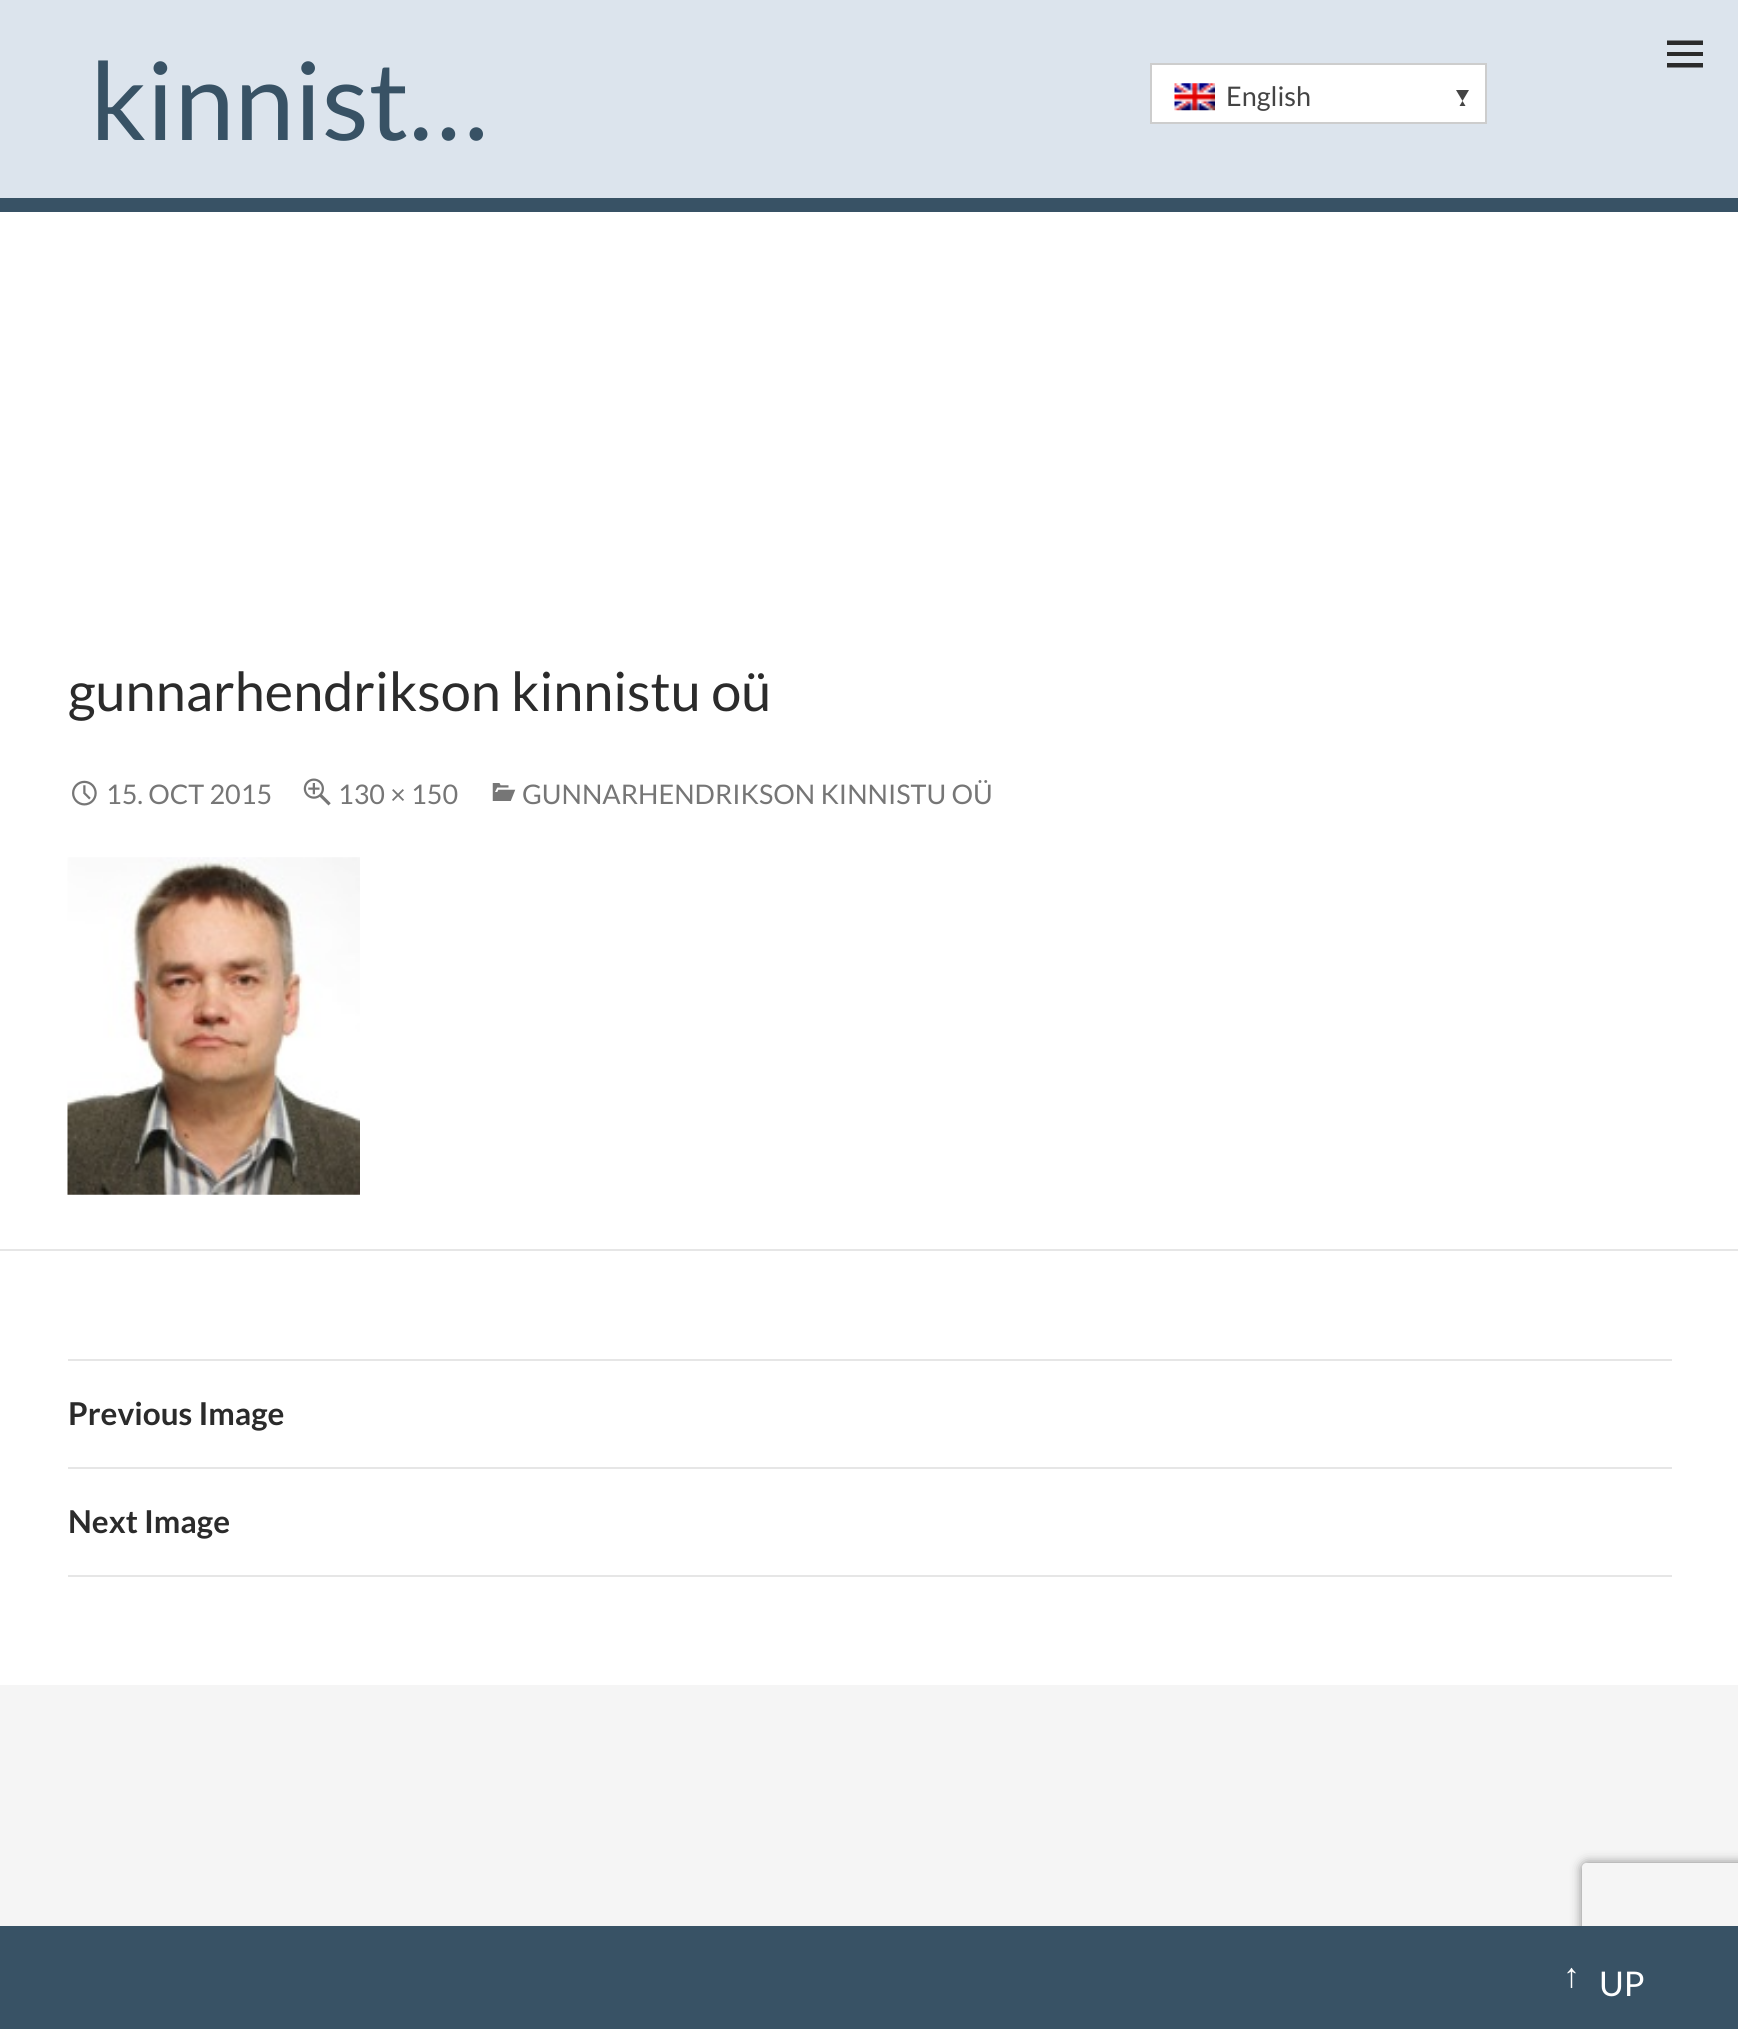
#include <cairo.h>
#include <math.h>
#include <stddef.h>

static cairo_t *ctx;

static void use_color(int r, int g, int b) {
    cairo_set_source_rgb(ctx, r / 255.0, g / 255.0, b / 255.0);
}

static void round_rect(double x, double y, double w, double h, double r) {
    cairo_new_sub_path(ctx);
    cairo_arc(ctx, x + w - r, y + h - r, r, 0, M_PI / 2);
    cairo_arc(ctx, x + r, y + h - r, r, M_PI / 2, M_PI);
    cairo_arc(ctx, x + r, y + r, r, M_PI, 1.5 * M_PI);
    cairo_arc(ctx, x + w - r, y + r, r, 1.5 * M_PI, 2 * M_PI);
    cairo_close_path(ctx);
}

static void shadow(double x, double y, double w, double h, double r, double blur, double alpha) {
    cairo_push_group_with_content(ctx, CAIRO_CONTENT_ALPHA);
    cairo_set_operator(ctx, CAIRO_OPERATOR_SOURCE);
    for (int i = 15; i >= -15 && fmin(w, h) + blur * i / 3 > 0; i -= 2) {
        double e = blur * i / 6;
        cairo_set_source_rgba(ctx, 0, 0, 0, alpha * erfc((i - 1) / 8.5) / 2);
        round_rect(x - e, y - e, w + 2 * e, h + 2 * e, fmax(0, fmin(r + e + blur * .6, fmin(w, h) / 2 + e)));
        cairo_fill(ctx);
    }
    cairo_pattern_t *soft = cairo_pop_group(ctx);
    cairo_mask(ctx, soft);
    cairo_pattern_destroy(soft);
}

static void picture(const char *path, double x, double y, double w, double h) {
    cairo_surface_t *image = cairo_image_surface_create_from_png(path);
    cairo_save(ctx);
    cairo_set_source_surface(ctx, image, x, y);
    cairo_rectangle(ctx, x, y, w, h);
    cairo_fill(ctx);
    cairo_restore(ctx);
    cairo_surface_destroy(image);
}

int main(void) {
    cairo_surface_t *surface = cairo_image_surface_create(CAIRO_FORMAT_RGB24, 1738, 2029);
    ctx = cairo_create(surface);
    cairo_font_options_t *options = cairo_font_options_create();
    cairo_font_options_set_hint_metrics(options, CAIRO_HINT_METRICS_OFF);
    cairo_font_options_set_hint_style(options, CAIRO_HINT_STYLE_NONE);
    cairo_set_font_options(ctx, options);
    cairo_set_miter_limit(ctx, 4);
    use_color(245, 245, 245);
    cairo_paint(ctx);
    use_color(255, 255, 255);
    cairo_rectangle(ctx, 0, 212, 1738, 1473);
    cairo_fill(ctx);
    use_color(220, 228, 237);
    cairo_rectangle(ctx, 0, 0, 1738, 198);
    cairo_fill(ctx);
    use_color(56, 82, 101);
    cairo_rectangle(ctx, 0, 198, 1738, 14);
    cairo_fill(ctx);
    use_color(43, 43, 43);
    cairo_new_path(ctx);
    cairo_move_to(ctx, 1667, 67.5);
    cairo_line_to(ctx, 1667, 63);
    cairo_line_to(ctx, 1703, 63);
    cairo_line_to(ctx, 1703, 67.5);
    cairo_close_path(ctx);
    cairo_move_to(ctx, 1667, 56);
    cairo_line_to(ctx, 1667, 52);
    cairo_line_to(ctx, 1703, 52);
    cairo_line_to(ctx, 1703, 56);
    cairo_close_path(ctx);
    cairo_move_to(ctx, 1667, 45);
    cairo_line_to(ctx, 1667, 40.5);
    cairo_line_to(ctx, 1703, 40.5);
    cairo_line_to(ctx, 1703, 45);
    cairo_close_path(ctx);
    cairo_fill(ctx);
    cairo_select_font_face(ctx, "Lato", CAIRO_FONT_SLANT_NORMAL, CAIRO_FONT_WEIGHT_NORMAL);
    cairo_set_font_size(ctx, 108);
    use_color(56, 82, 101);
    cairo_move_to(ctx, 90, 140);
    cairo_show_text(ctx, "kinnist…");
    use_color(255, 255, 255);
    cairo_rectangle(ctx, 1151, 64, 335, 59);
    cairo_fill_preserve(ctx);
    use_color(205, 205, 205);
    cairo_stroke(ctx);
    picture("img1.png", 1174, 83, 41, 28);
    cairo_set_font_size(ctx, 27);
    use_color(68, 68, 68);
    cairo_move_to(ctx, 1226, 106);
    cairo_show_text(ctx, "English");
    cairo_new_path(ctx);
    cairo_move_to(ctx, 1456, 90);
    cairo_line_to(ctx, 1469, 90);
    cairo_line_to(ctx, 1459.5, 106);
    cairo_line_to(ctx, 1465.5, 106);
    cairo_close_path(ctx);
    cairo_fill(ctx);
    use_color(230, 230, 230);
    cairo_rectangle(ctx, 0, 1249, 1738, 2);
    cairo_fill(ctx);
    cairo_set_font_size(ctx, 54);
    use_color(43, 43, 43);
    cairo_move_to(ctx, 68, 711);
    cairo_show_text(ctx, "gunnarhendrikson kinnistu oü");
    picture("img2.png", 72, 780, 25, 26);
    cairo_set_font_size(ctx, 27);
    use_color(118, 118, 118);
    cairo_move_to(ctx, 106, 804);
    cairo_show_text(ctx, "15. OCT 2015");
    picture("img3.png", 303, 778, 28, 28);
    cairo_move_to(ctx, 338, 804);
    cairo_show_text(ctx, "130 × 150");
    picture("img4.png", 492, 783, 24, 18);
    cairo_move_to(ctx, 522, 804);
    cairo_show_text(ctx, "GUNNARHENDRIKSON KINNISTU OÜ");
    picture("img5.png", 67, 857, 293, 338);
    use_color(230, 230, 230);
    cairo_rectangle(ctx, 68, 1359, 1604, 2);
    cairo_fill(ctx);
    cairo_rectangle(ctx, 68, 1467, 1604, 2);
    cairo_fill(ctx);
    cairo_select_font_face(ctx, "Lato", CAIRO_FONT_SLANT_NORMAL, CAIRO_FONT_WEIGHT_BOLD);
    cairo_set_font_size(ctx, 31.5);
    use_color(43, 43, 43);
    cairo_move_to(ctx, 68, 1425);
    cairo_show_text(ctx, "Previous Image");
    use_color(230, 230, 230);
    cairo_rectangle(ctx, 68, 1575, 1604, 2);
    cairo_fill(ctx);
    use_color(43, 43, 43);
    cairo_move_to(ctx, 68, 1533);
    cairo_show_text(ctx, "Next Image");
    cairo_save(ctx);
    cairo_set_fill_rule(ctx, CAIRO_FILL_RULE_EVEN_ODD);
    cairo_new_path(ctx);
    cairo_move_to(ctx, 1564, 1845);
    cairo_line_to(ctx, 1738, 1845);
    cairo_line_to(ctx, 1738, 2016);
    cairo_line_to(ctx, 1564, 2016);
    cairo_close_path(ctx);
    cairo_move_to(ctx, 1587, 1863);
    cairo_line_to(ctx, 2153, 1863);
    cairo_curve_to(ctx, 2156, 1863, 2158, 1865, 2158, 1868);
    cairo_line_to(ctx, 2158, 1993);
    cairo_curve_to(ctx, 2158, 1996, 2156, 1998, 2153, 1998);
    cairo_line_to(ctx, 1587, 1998);
    cairo_curve_to(ctx, 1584, 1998, 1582, 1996, 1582, 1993);
    cairo_line_to(ctx, 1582, 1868);
    cairo_curve_to(ctx, 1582, 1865, 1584, 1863, 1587, 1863);
    cairo_close_path(ctx);
    cairo_clip(ctx);
    use_color(128, 128, 128);
    shadow(1582, 1863, 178, 135, 5, 5.5, 1);
    cairo_restore(ctx);
    use_color(56, 82, 101);
    cairo_rectangle(ctx, 0, 1926, 1738, 103);
    cairo_fill(ctx);
    cairo_select_font_face(ctx, "Liberation Sans", CAIRO_FONT_SLANT_NORMAL, CAIRO_FONT_WEIGHT_NORMAL);
    cairo_set_font_size(ctx, 34);
    use_color(255, 255, 255);
    cairo_move_to(ctx, 1563, 1987);
    cairo_show_text(ctx, "↑");
    cairo_select_font_face(ctx, "Lato", CAIRO_FONT_SLANT_NORMAL, CAIRO_FONT_WEIGHT_NORMAL);
    cairo_move_to(ctx, 1599, 1996);
    cairo_show_text(ctx, "UP");
    cairo_surface_write_to_png(surface, "result.png");
    cairo_font_options_destroy(options);
    cairo_destroy(ctx);
    cairo_surface_destroy(surface);
    return 0;
}
